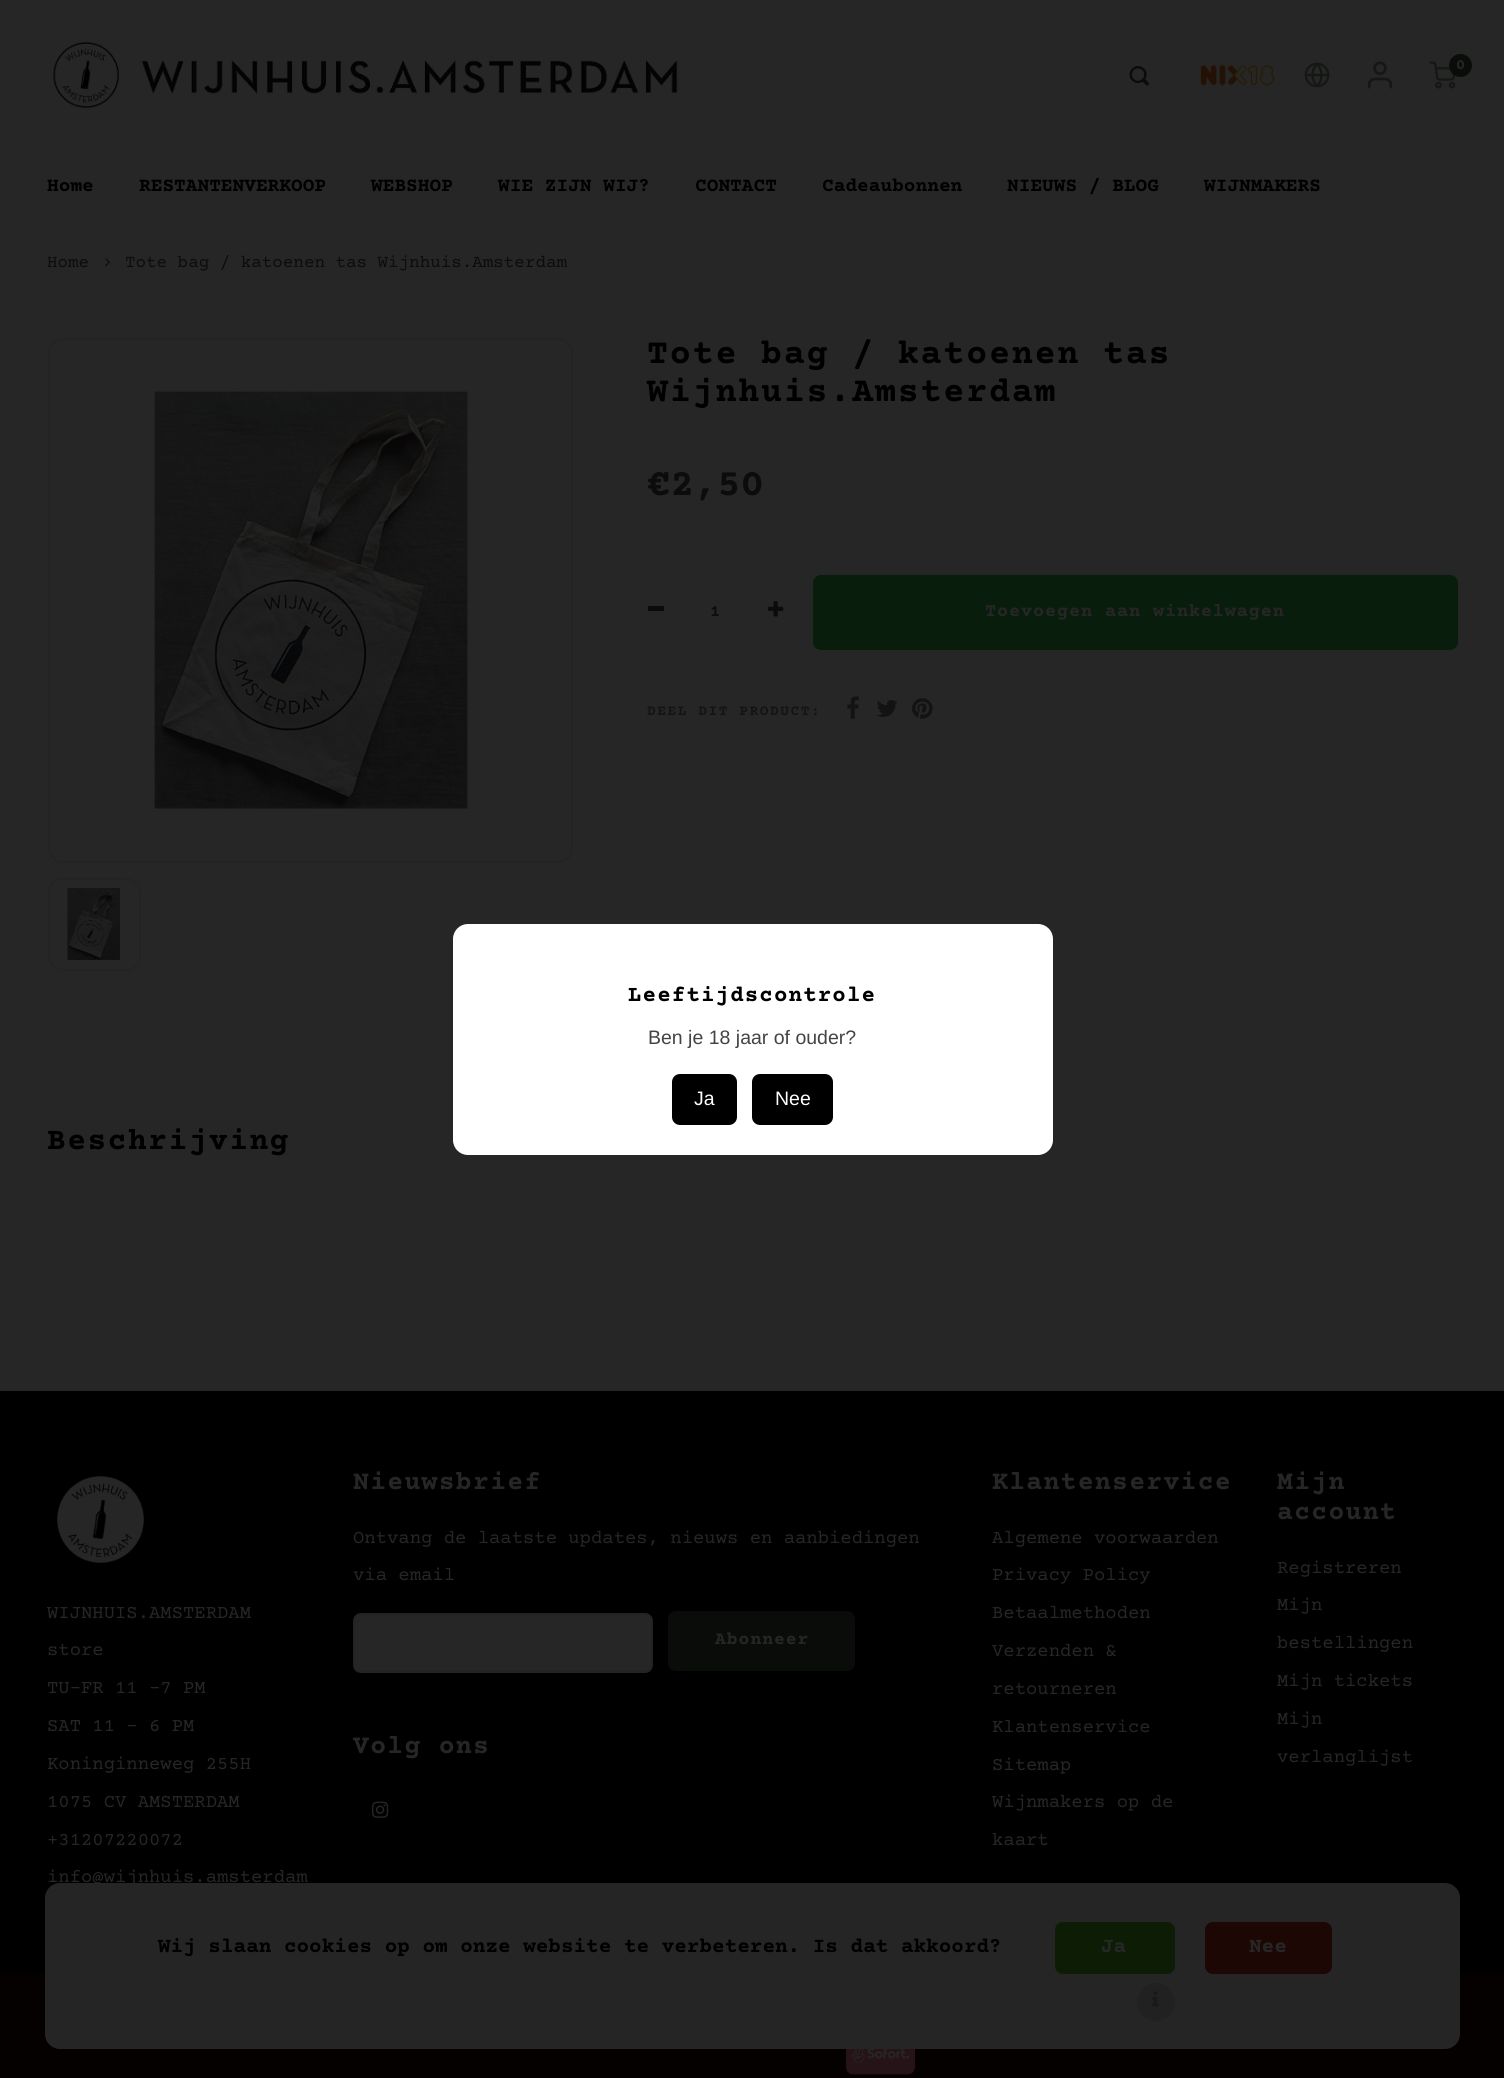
#include <cairo.h>
#include <math.h>
#include <stddef.h>

static cairo_t *ctx;

static void use_color(int r, int g, int b) {
    cairo_set_source_rgb(ctx, r / 255.0, g / 255.0, b / 255.0);
}

static void spaced_text(double x, double y, const char *s, double letter, double word) {
    cairo_move_to(ctx, x, y);
    while (*s) {
        char ch[5] = {0};
        int n = 0;
        do ch[n++] = *s++; while ((*s & 0xC0) == 0x80);
        cairo_show_text(ctx, ch);
        cairo_rel_move_to(ctx, letter + word * (*ch == ' '), 0);
    }
}

static void round_rect(double x, double y, double w, double h, double r) {
    cairo_new_sub_path(ctx);
    cairo_arc(ctx, x + w - r, y + h - r, r, 0, M_PI / 2);
    cairo_arc(ctx, x + r, y + h - r, r, M_PI / 2, M_PI);
    cairo_arc(ctx, x + r, y + r, r, M_PI, 1.5 * M_PI);
    cairo_arc(ctx, x + w - r, y + r, r, 1.5 * M_PI, 2 * M_PI);
    cairo_close_path(ctx);
}

static void picture(const char *path, double x, double y, double w, double h) {
    cairo_surface_t *image = cairo_image_surface_create_from_png(path);
    cairo_save(ctx);
    cairo_set_source_surface(ctx, image, x, y);
    cairo_rectangle(ctx, x, y, w, h);
    cairo_fill(ctx);
    cairo_restore(ctx);
    cairo_surface_destroy(image);
}

int main(void) {
    cairo_surface_t *surface = cairo_image_surface_create(CAIRO_FORMAT_RGB24, 1504, 2078);
    ctx = cairo_create(surface);
    cairo_font_options_t *options = cairo_font_options_create();
    cairo_font_options_set_hint_metrics(options, CAIRO_HINT_METRICS_OFF);
    cairo_font_options_set_hint_style(options, CAIRO_HINT_STYLE_NONE);
    cairo_set_font_options(ctx, options);
    cairo_set_miter_limit(ctx, 4);
    use_color(38, 38, 38);
    cairo_paint(ctx);
    picture("img1.png", 53, 42, 625, 67);
    picture("img2.png", 1129, 66, 20, 20);
    picture("img3.png", 1200, 64, 75, 22);
    picture("img4.png", 1304, 62, 26, 26);
    picture("img5.png", 1367, 61, 26, 28);
    picture("img6.png", 1429, 61, 27, 28);
    use_color(10, 12, 10);
    cairo_arc(ctx, 1460.5, 65.5, 11.5, 0, 2 * M_PI);
    cairo_fill(ctx);
    cairo_select_font_face(ctx, "Courier Prime", CAIRO_FONT_SLANT_NORMAL, CAIRO_FONT_WEIGHT_BOLD);
    cairo_set_font_size(ctx, 15);
    use_color(38, 38, 38);
    cairo_move_to(ctx, 1456, 69);
    cairo_show_text(ctx, "0");
    cairo_set_font_size(ctx, 19.5);
    use_color(0, 0, 0);
    cairo_move_to(ctx, 47, 191);
    cairo_show_text(ctx, "Home");
    cairo_move_to(ctx, 139, 191);
    cairo_show_text(ctx, "RESTANTENVERKOOP");
    cairo_move_to(ctx, 371, 191);
    cairo_show_text(ctx, "WEBSHOP");
    cairo_move_to(ctx, 498, 191);
    cairo_show_text(ctx, "WIE ZIJN WIJ?");
    cairo_move_to(ctx, 695, 191);
    cairo_show_text(ctx, "CONTACT");
    cairo_move_to(ctx, 822, 191);
    cairo_show_text(ctx, "Cadeaubonnen");
    cairo_move_to(ctx, 1007, 191);
    cairo_show_text(ctx, "NIEUWS / BLOG");
    cairo_move_to(ctx, 1204, 191);
    cairo_show_text(ctx, "WIJNMAKERS");
    cairo_select_font_face(ctx, "Courier Prime", CAIRO_FONT_SLANT_NORMAL, CAIRO_FONT_WEIGHT_NORMAL);
    cairo_set_font_size(ctx, 17.55);
    use_color(13, 12, 12);
    cairo_move_to(ctx, 47, 267);
    cairo_show_text(ctx, "Home");
    picture("img7.png", 105, 258, 5, 9);
    cairo_move_to(ctx, 125, 267);
    cairo_show_text(ctx, "Tote bag / katoenen tas Wijnhuis.Amsterdam");
    round_rect(49, 339, 523, 523, 14);
    cairo_set_source_rgba(ctx, 0, 0, 0, 0.07);
    cairo_stroke(ctx);
    picture("img8.png", 153, 391, 316, 418);
    round_rect(49, 879, 91, 91, 14);
    cairo_stroke(ctx);
    picture("img9.png", 67, 887, 54, 73);
    cairo_select_font_face(ctx, "Courier Prime", CAIRO_FONT_SLANT_NORMAL, CAIRO_FONT_WEIGHT_BOLD);
    cairo_set_font_size(ctx, 35.1);
    use_color(0, 0, 0);
    spaced_text(647, 363, "Tote bag / katoenen tas", 1.75, 0);
    spaced_text(647, 401, "Wijnhuis.Amsterdam", 1.75, 0);
    cairo_set_font_size(ctx, 39);
    use_color(13, 12, 12);
    cairo_move_to(ctx, 647, 495);
    cairo_show_text(ctx, "€2,50");
    use_color(10, 12, 10);
    cairo_rectangle(ctx, 648, 606, 16, 5);
    cairo_fill(ctx);
    cairo_set_font_size(ctx, 17);
    use_color(13, 12, 12);
    spaced_text(710, 616, "1", 1, 0);
    picture("img10.png", 768, 601, 16, 16);
    use_color(9, 29, 12);
    round_rect(813, 575, 645, 75, 8);
    cairo_fill(ctx);
    cairo_set_font_size(ctx, 18.5);
    use_color(38, 38, 38);
    spaced_text(985, 616, "Toevoegen aan winkelwagen", 0.9, 0);
    cairo_set_font_size(ctx, 14.6);
    use_color(20, 20, 20);
    spaced_text(647, 715, "DEEL DIT PRODUCT:", 1.5, 0);
    picture("img11.png", 847, 696, 12, 23);
    picture("img12.png", 876, 699, 22, 18);
    picture("img13.png", 912, 698, 21, 21);
    cairo_set_font_size(ctx, 31.25);
    use_color(0, 0, 0);
    spaced_text(47, 1149, "Beschrijving", 1.5, 0);
    use_color(255, 255, 255);
    round_rect(453, 924, 600, 231, 15);
    cairo_fill(ctx);
    cairo_set_font_size(ctx, 22.5);
    use_color(0, 0, 0);
    spaced_text(628, 1001, "Leeftijdscontrole", 1.1, 0);
    cairo_select_font_face(ctx, "Liberation Sans", CAIRO_FONT_SLANT_NORMAL, CAIRO_FONT_WEIGHT_NORMAL);
    cairo_set_font_size(ctx, 19.5);
    use_color(68, 68, 68);
    cairo_move_to(ctx, 648, 1044);
    cairo_show_text(ctx, "Ben je 18 jaar of ouder?");
    use_color(0, 0, 0);
    round_rect(672, 1074, 65, 51, 8);
    cairo_fill(ctx);
    use_color(255, 255, 255);
    cairo_move_to(ctx, 694, 1105);
    cairo_show_text(ctx, "Ja");
    use_color(0, 0, 0);
    round_rect(752, 1074, 81, 51, 8);
    cairo_fill(ctx);
    use_color(255, 255, 255);
    cairo_move_to(ctx, 775, 1105);
    cairo_show_text(ctx, "Nee");
    use_color(0, 0, 0);
    cairo_rectangle(ctx, 0, 1391, 1504, 582);
    cairo_fill(ctx);
    picture("img14.png", 57, 1476, 87, 87);
    cairo_select_font_face(ctx, "Courier Prime", CAIRO_FONT_SLANT_NORMAL, CAIRO_FONT_WEIGHT_NORMAL);
    cairo_set_font_size(ctx, 18.9);
    use_color(38, 38, 38);
    cairo_move_to(ctx, 47, 1618);
    cairo_show_text(ctx, "WIJNHUIS.AMSTERDAM");
    cairo_move_to(ctx, 47, 1655);
    cairo_show_text(ctx, "store");
    cairo_move_to(ctx, 47, 1693);
    cairo_show_text(ctx, "TU-FR 11 -7 PM");
    cairo_move_to(ctx, 47, 1731);
    cairo_show_text(ctx, "SAT 11 - 6 PM");
    cairo_move_to(ctx, 47, 1769);
    cairo_show_text(ctx, "Koninginneweg 255H");
    cairo_move_to(ctx, 47, 1807);
    cairo_show_text(ctx, "1075 CV AMSTERDAM");
    cairo_move_to(ctx, 47, 1845);
    cairo_show_text(ctx, "+31207220072");
    cairo_move_to(ctx, 47, 1882);
    cairo_show_text(ctx, "info@wijnhuis.amsterdam");
    cairo_select_font_face(ctx, "Courier Prime", CAIRO_FONT_SLANT_NORMAL, CAIRO_FONT_WEIGHT_BOLD);
    cairo_set_font_size(ctx, 26.5);
    spaced_text(353, 1489, "Nieuwsbrief", 1.25, 0);
    cairo_select_font_face(ctx, "Courier Prime", CAIRO_FONT_SLANT_NORMAL, CAIRO_FONT_WEIGHT_NORMAL);
    cairo_set_font_size(ctx, 18.9);
    cairo_move_to(ctx, 353, 1543);
    cairo_show_text(ctx, "Ontvang de laatste updates, nieuws en aanbiedingen");
    cairo_move_to(ctx, 353, 1580);
    cairo_show_text(ctx, "via email");
    round_rect(353, 1613, 300, 60, 8);
    cairo_fill(ctx);
    round_rect(354, 1614, 298, 58, 7);
    cairo_set_source_rgba(ctx, 0, 0, 0, 0.07);
    cairo_stroke(ctx);
    use_color(10, 12, 10);
    round_rect(668, 1611, 187, 60, 8);
    cairo_fill(ctx);
    cairo_select_font_face(ctx, "Courier Prime", CAIRO_FONT_SLANT_NORMAL, CAIRO_FONT_WEIGHT_BOLD);
    cairo_set_font_size(ctx, 18);
    use_color(38, 38, 38);
    spaced_text(715, 1644, "Abonneer", 1, 0);
    cairo_set_font_size(ctx, 26.5);
    spaced_text(353, 1753, "Volg ons", 1.25, 0);
    picture("img15.png", 372, 1801, 17, 17);
    spaced_text(992, 1489, "Klantenservice", 1.25, 0);
    cairo_select_font_face(ctx, "Courier Prime", CAIRO_FONT_SLANT_NORMAL, CAIRO_FONT_WEIGHT_NORMAL);
    cairo_set_font_size(ctx, 18.9);
    cairo_move_to(ctx, 992, 1543);
    cairo_show_text(ctx, "Algemene voorwaarden");
    cairo_move_to(ctx, 992, 1580);
    cairo_show_text(ctx, "Privacy Policy");
    cairo_move_to(ctx, 992, 1618);
    cairo_show_text(ctx, "Betaalmethoden");
    cairo_move_to(ctx, 992, 1656);
    cairo_show_text(ctx, "Verzenden &");
    cairo_move_to(ctx, 992, 1694);
    cairo_show_text(ctx, "retourneren");
    cairo_move_to(ctx, 992, 1732);
    cairo_show_text(ctx, "Klantenservice");
    cairo_move_to(ctx, 992, 1770);
    cairo_show_text(ctx, "Sitemap");
    cairo_move_to(ctx, 992, 1807);
    cairo_show_text(ctx, "Wijnmakers op de");
    cairo_move_to(ctx, 992, 1845);
    cairo_show_text(ctx, "kaart");
    cairo_select_font_face(ctx, "Courier Prime", CAIRO_FONT_SLANT_NORMAL, CAIRO_FONT_WEIGHT_BOLD);
    cairo_set_font_size(ctx, 26.5);
    spaced_text(1277, 1489, "Mijn", 1.25, 0);
    spaced_text(1277, 1519, "account", 1.25, 0);
    cairo_select_font_face(ctx, "Courier Prime", CAIRO_FONT_SLANT_NORMAL, CAIRO_FONT_WEIGHT_NORMAL);
    cairo_set_font_size(ctx, 18.9);
    cairo_move_to(ctx, 1277, 1573);
    cairo_show_text(ctx, "Registreren");
    cairo_move_to(ctx, 1277, 1610);
    cairo_show_text(ctx, "Mijn");
    cairo_move_to(ctx, 1277, 1648);
    cairo_show_text(ctx, "bestellingen");
    cairo_move_to(ctx, 1277, 1686);
    cairo_show_text(ctx, "Mijn tickets");
    cairo_move_to(ctx, 1277, 1724);
    cairo_show_text(ctx, "Mijn");
    cairo_move_to(ctx, 1277, 1762);
    cairo_show_text(ctx, "verlanglijst");
    use_color(6, 1, 1);
    cairo_rectangle(ctx, 0, 1973, 1504, 105);
    cairo_fill(ctx);
    picture("img16.png", 846, 2049, 69, 26);
    use_color(37, 37, 37);
    round_rect(45, 1883, 1415, 166, 15);
    cairo_fill(ctx);
    cairo_select_font_face(ctx, "Courier Prime", CAIRO_FONT_SLANT_NORMAL, CAIRO_FONT_WEIGHT_BOLD);
    cairo_set_font_size(ctx, 21);
    use_color(0, 0, 0);
    cairo_move_to(ctx, 158, 1952);
    cairo_show_text(ctx, "Wij slaan cookies op om onze website te verbeteren. Is dat akkoord?");
    use_color(12, 28, 5);
    round_rect(1055, 1922, 120, 52, 8);
    cairo_fill(ctx);
    use_color(38, 38, 38);
    cairo_move_to(ctx, 1101, 1952);
    cairo_show_text(ctx, "Ja");
    use_color(28, 7, 5);
    round_rect(1205, 1922, 127, 52, 8);
    cairo_fill(ctx);
    use_color(38, 38, 38);
    cairo_move_to(ctx, 1249, 1952);
    cairo_show_text(ctx, "Nee");
    use_color(33, 33, 33);
    cairo_new_path(ctx);
    cairo_arc(ctx, 1156, 2002, 19, 0, 2 * M_PI);
    cairo_fill(ctx);
    picture("img17.png", 1152, 1991, 7, 16);
    cairo_surface_write_to_png(surface, "result.png");
    cairo_font_options_destroy(options);
    cairo_destroy(ctx);
    cairo_surface_destroy(surface);
    return 0;
}
